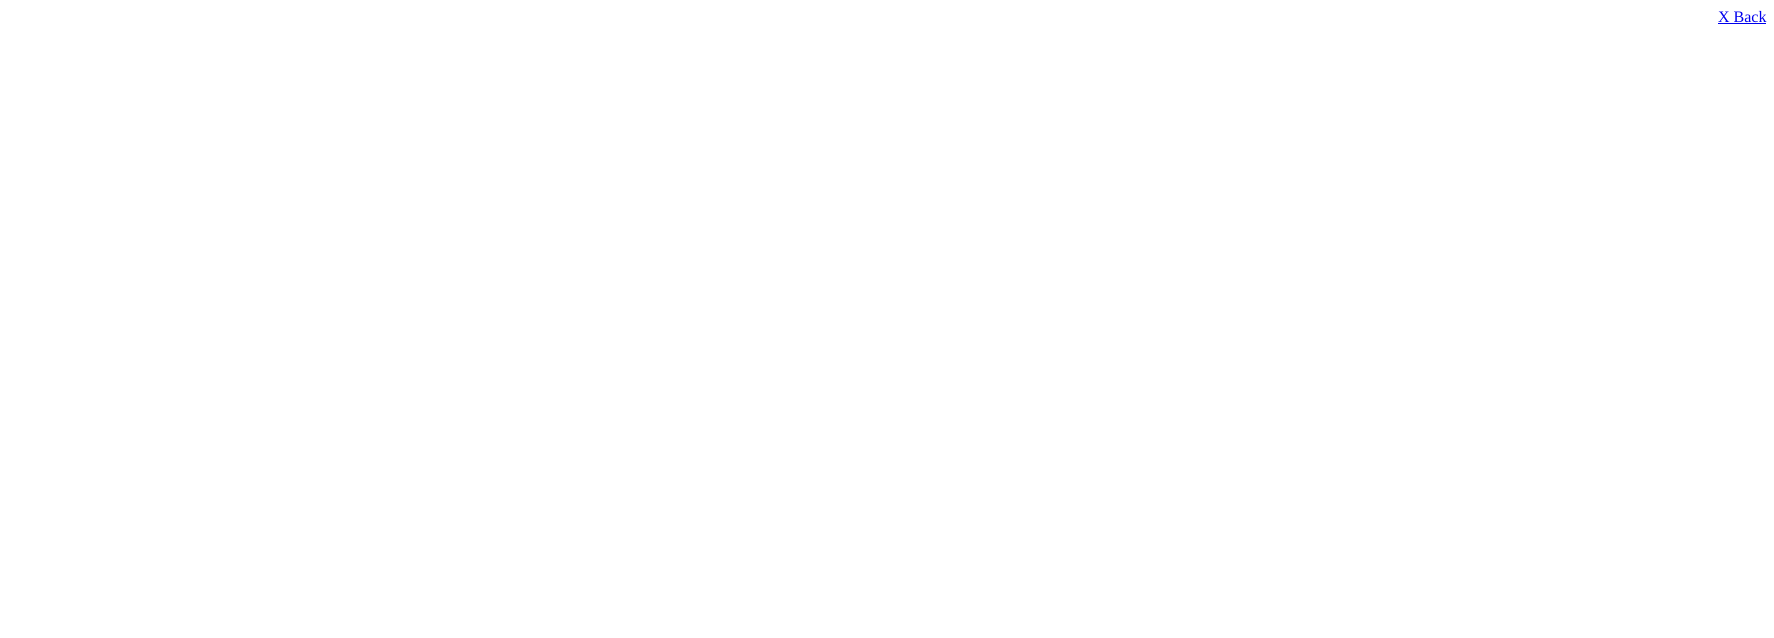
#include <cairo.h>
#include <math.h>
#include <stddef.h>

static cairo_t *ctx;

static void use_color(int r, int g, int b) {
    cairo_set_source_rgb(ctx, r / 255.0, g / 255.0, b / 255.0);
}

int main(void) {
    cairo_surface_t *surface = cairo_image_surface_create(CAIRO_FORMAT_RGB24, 1774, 638);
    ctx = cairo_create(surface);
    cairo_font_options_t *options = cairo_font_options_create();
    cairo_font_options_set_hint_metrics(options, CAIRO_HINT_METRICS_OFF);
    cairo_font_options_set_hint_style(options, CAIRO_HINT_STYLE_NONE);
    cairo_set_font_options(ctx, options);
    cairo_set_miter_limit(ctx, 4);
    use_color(255, 255, 255);
    cairo_paint(ctx);
    cairo_select_font_face(ctx, "Liberation Serif", CAIRO_FONT_SLANT_NORMAL, CAIRO_FONT_WEIGHT_NORMAL);
    cairo_set_font_size(ctx, 16);
    use_color(0, 0, 238);
    cairo_move_to(ctx, 1718, 22);
    cairo_show_text(ctx, "X Back");
    cairo_rectangle(ctx, 1718, 23, 48, 1);
    cairo_fill(ctx);
    cairo_surface_write_to_png(surface, "result.png");
    cairo_font_options_destroy(options);
    cairo_destroy(ctx);
    cairo_surface_destroy(surface);
    return 0;
}
